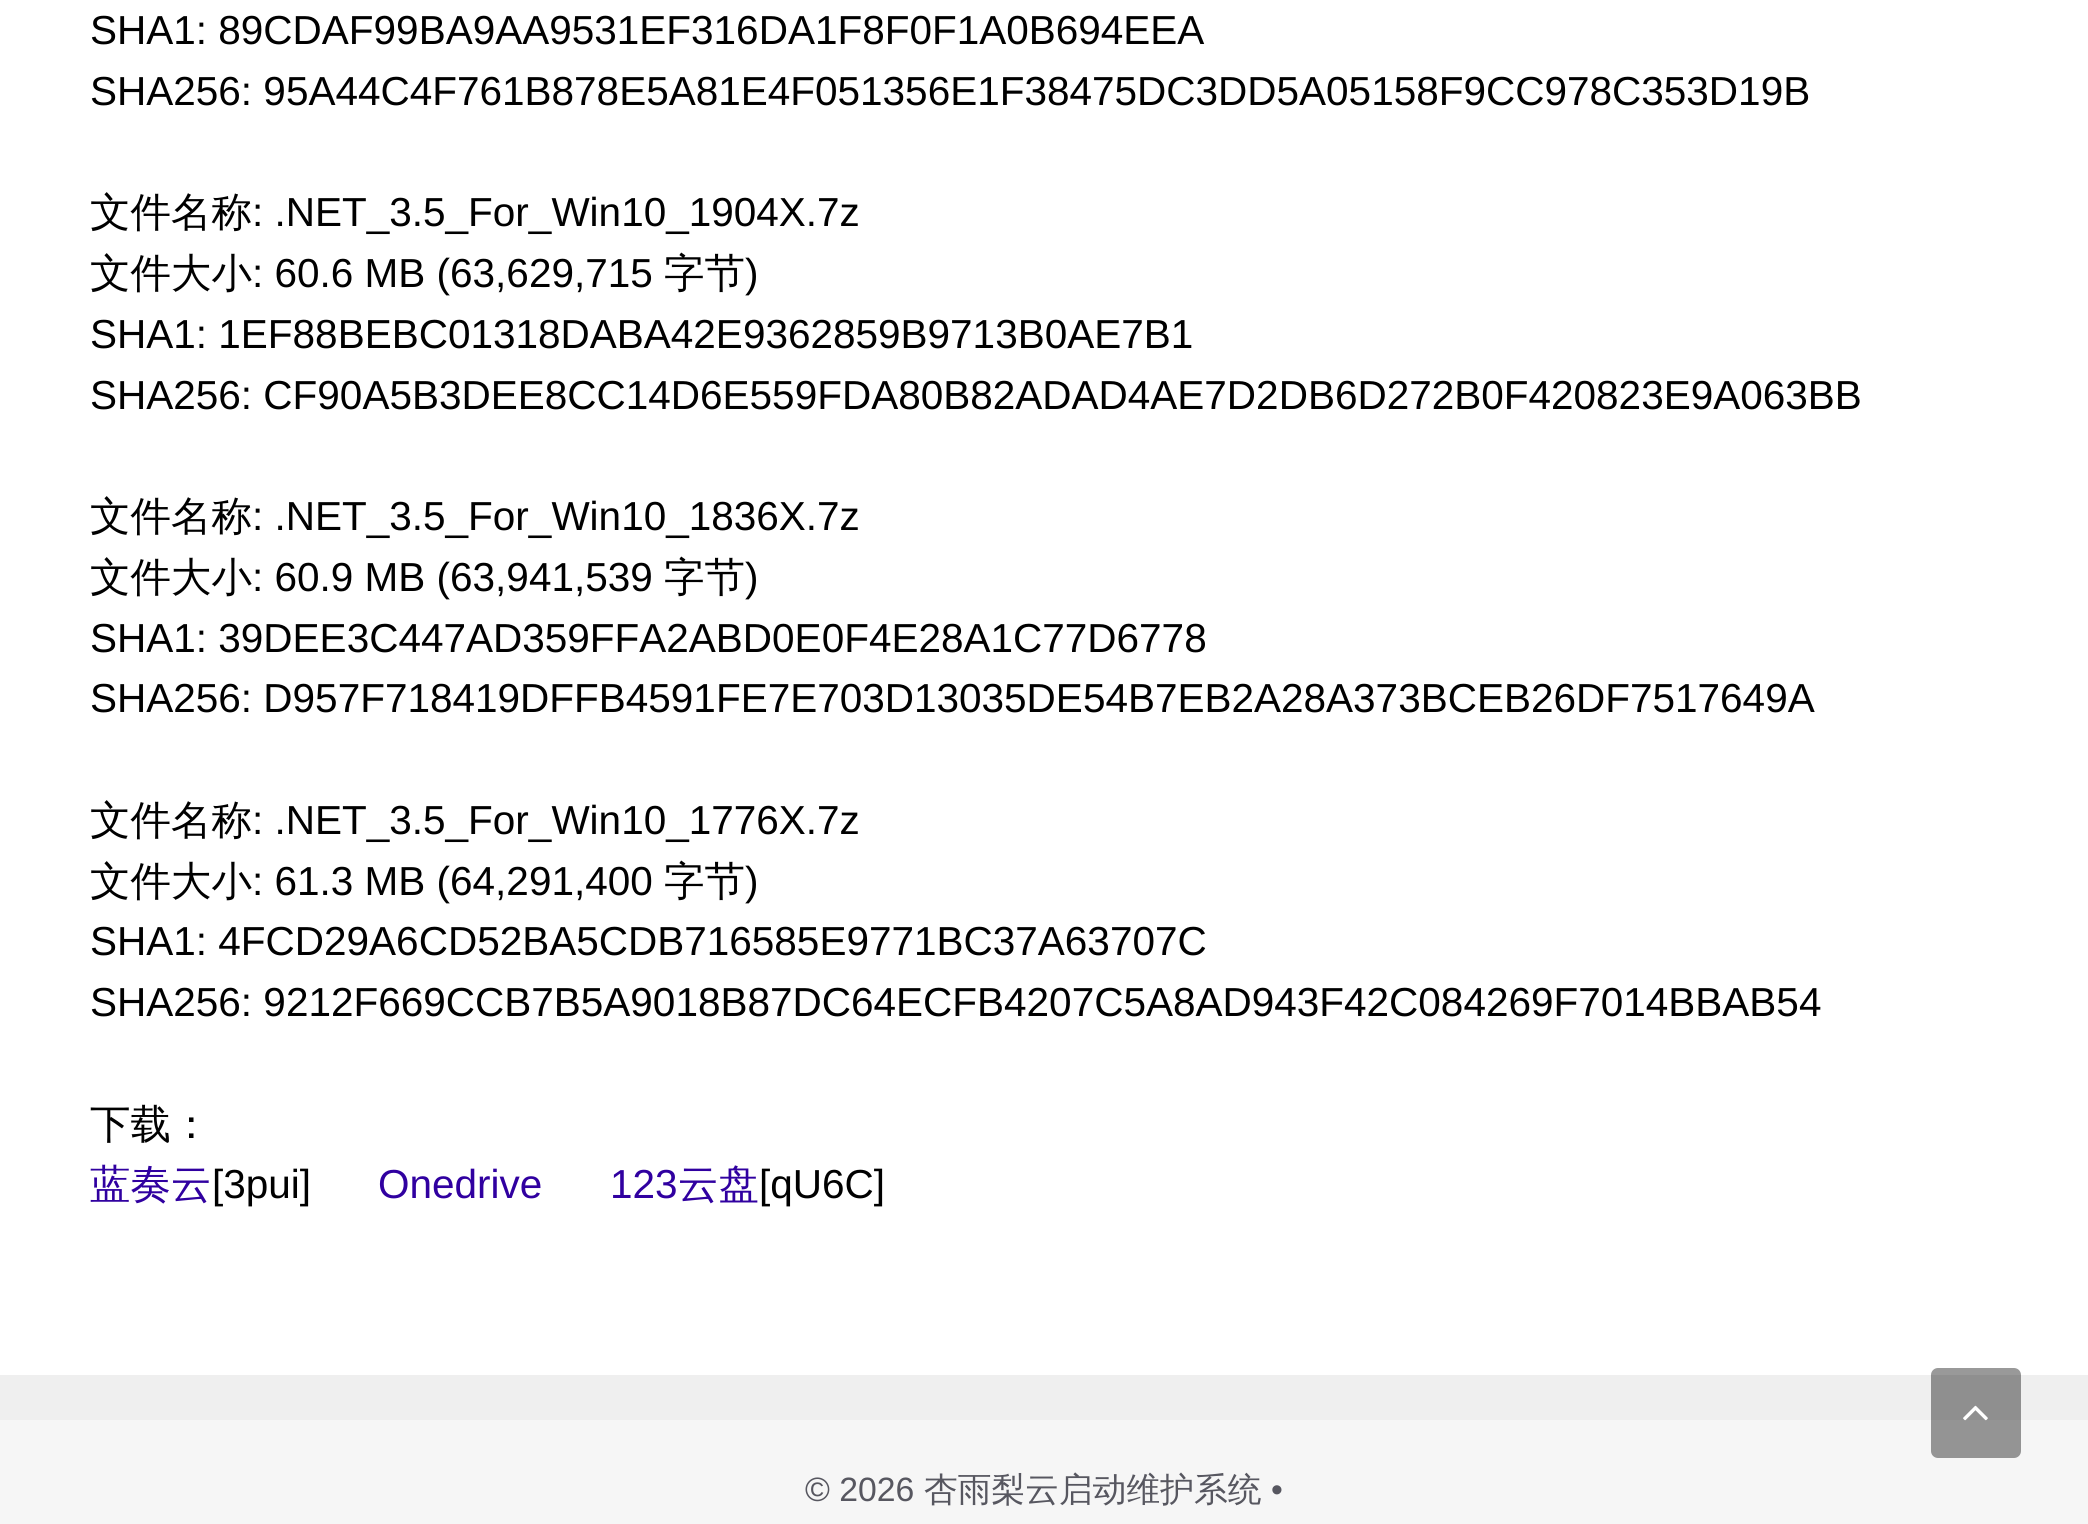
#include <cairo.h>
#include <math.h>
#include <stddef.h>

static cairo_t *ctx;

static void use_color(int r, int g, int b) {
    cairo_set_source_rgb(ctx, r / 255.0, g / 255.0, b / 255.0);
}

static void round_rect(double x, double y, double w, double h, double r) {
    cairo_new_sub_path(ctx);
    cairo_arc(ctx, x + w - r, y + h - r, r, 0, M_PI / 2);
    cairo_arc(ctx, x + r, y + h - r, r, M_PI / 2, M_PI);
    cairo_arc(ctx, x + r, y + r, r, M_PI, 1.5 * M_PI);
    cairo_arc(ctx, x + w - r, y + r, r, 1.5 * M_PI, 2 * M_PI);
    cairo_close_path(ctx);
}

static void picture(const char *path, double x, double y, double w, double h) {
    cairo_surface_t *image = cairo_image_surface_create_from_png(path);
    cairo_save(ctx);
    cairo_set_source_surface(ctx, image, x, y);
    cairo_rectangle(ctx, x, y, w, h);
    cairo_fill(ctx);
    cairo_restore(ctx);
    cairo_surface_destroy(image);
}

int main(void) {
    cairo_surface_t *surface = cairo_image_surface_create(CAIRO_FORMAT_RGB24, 2088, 1524);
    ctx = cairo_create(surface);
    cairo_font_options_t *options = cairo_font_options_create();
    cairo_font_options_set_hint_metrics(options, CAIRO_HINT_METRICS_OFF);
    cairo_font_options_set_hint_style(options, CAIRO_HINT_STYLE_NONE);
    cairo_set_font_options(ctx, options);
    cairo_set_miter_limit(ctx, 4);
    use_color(239, 239, 239);
    cairo_paint(ctx);
    use_color(255, 255, 255);
    cairo_rectangle(ctx, 0, 0, 2088, 1375);
    cairo_fill(ctx);
    cairo_select_font_face(ctx, "Liberation Sans", CAIRO_FONT_SLANT_NORMAL, CAIRO_FONT_WEIGHT_NORMAL);
    cairo_set_font_size(ctx, 40.5);
    use_color(0, 0, 0);
    cairo_move_to(ctx, 90, 44);
    cairo_show_text(ctx, "SHA1: 89CDAF99BA9AA9531EF316DA1F8F0F1A0B694EEA");
    cairo_move_to(ctx, 90, 105);
    cairo_show_text(ctx, "SHA256: 95A44C4F761B878E5A81E4F051356E1F38475DC3DD5A05158F9CC978C353D19B");
    cairo_select_font_face(ctx, "WenQuanYi Zen Hei Medium", CAIRO_FONT_SLANT_NORMAL, CAIRO_FONT_WEIGHT_NORMAL);
    cairo_move_to(ctx, 90, 226);
    cairo_show_text(ctx, "文件名称");
    cairo_select_font_face(ctx, "Liberation Sans", CAIRO_FONT_SLANT_NORMAL, CAIRO_FONT_WEIGHT_NORMAL);
    cairo_move_to(ctx, 252, 226);
    cairo_show_text(ctx, ": .NET_3.5_For_Win10_1904X.7z");
    cairo_select_font_face(ctx, "WenQuanYi Zen Hei Medium", CAIRO_FONT_SLANT_NORMAL, CAIRO_FONT_WEIGHT_NORMAL);
    cairo_move_to(ctx, 90, 287);
    cairo_show_text(ctx, "文件大小");
    cairo_select_font_face(ctx, "Liberation Sans", CAIRO_FONT_SLANT_NORMAL, CAIRO_FONT_WEIGHT_NORMAL);
    cairo_move_to(ctx, 252, 287);
    cairo_show_text(ctx, ": 60.6 MB (63,629,715");
    cairo_select_font_face(ctx, "WenQuanYi Zen Hei Medium", CAIRO_FONT_SLANT_NORMAL, CAIRO_FONT_WEIGHT_NORMAL);
    cairo_move_to(ctx, 664, 287);
    cairo_show_text(ctx, "字节");
    cairo_select_font_face(ctx, "Liberation Sans", CAIRO_FONT_SLANT_NORMAL, CAIRO_FONT_WEIGHT_NORMAL);
    cairo_move_to(ctx, 745, 287);
    cairo_show_text(ctx, ")");
    cairo_move_to(ctx, 90, 348);
    cairo_show_text(ctx, "SHA1: 1EF88BEBC01318DABA42E9362859B9713B0AE7B1");
    cairo_move_to(ctx, 90, 409);
    cairo_show_text(ctx, "SHA256: CF90A5B3DEE8CC14D6E559FDA80B82ADAD4AE7D2DB6D272B0F420823E9A063BB");
    cairo_select_font_face(ctx, "WenQuanYi Zen Hei Medium", CAIRO_FONT_SLANT_NORMAL, CAIRO_FONT_WEIGHT_NORMAL);
    cairo_move_to(ctx, 90, 530);
    cairo_show_text(ctx, "文件名称");
    cairo_select_font_face(ctx, "Liberation Sans", CAIRO_FONT_SLANT_NORMAL, CAIRO_FONT_WEIGHT_NORMAL);
    cairo_move_to(ctx, 252, 530);
    cairo_show_text(ctx, ": .NET_3.5_For_Win10_1836X.7z");
    cairo_select_font_face(ctx, "WenQuanYi Zen Hei Medium", CAIRO_FONT_SLANT_NORMAL, CAIRO_FONT_WEIGHT_NORMAL);
    cairo_move_to(ctx, 90, 591);
    cairo_show_text(ctx, "文件大小");
    cairo_select_font_face(ctx, "Liberation Sans", CAIRO_FONT_SLANT_NORMAL, CAIRO_FONT_WEIGHT_NORMAL);
    cairo_move_to(ctx, 252, 591);
    cairo_show_text(ctx, ": 60.9 MB (63,941,539");
    cairo_select_font_face(ctx, "WenQuanYi Zen Hei Medium", CAIRO_FONT_SLANT_NORMAL, CAIRO_FONT_WEIGHT_NORMAL);
    cairo_move_to(ctx, 664, 591);
    cairo_show_text(ctx, "字节");
    cairo_select_font_face(ctx, "Liberation Sans", CAIRO_FONT_SLANT_NORMAL, CAIRO_FONT_WEIGHT_NORMAL);
    cairo_move_to(ctx, 745, 591);
    cairo_show_text(ctx, ")");
    cairo_move_to(ctx, 90, 652);
    cairo_show_text(ctx, "SHA1: 39DEE3C447AD359FFA2ABD0E0F4E28A1C77D6778");
    cairo_move_to(ctx, 90, 712);
    cairo_show_text(ctx, "SHA256: D957F718419DFFB4591FE7E703D13035DE54B7EB2A28A373BCEB26DF7517649A");
    cairo_select_font_face(ctx, "WenQuanYi Zen Hei Medium", CAIRO_FONT_SLANT_NORMAL, CAIRO_FONT_WEIGHT_NORMAL);
    cairo_move_to(ctx, 90, 834);
    cairo_show_text(ctx, "文件名称");
    cairo_select_font_face(ctx, "Liberation Sans", CAIRO_FONT_SLANT_NORMAL, CAIRO_FONT_WEIGHT_NORMAL);
    cairo_move_to(ctx, 252, 834);
    cairo_show_text(ctx, ": .NET_3.5_For_Win10_1776X.7z");
    cairo_select_font_face(ctx, "WenQuanYi Zen Hei Medium", CAIRO_FONT_SLANT_NORMAL, CAIRO_FONT_WEIGHT_NORMAL);
    cairo_move_to(ctx, 90, 895);
    cairo_show_text(ctx, "文件大小");
    cairo_select_font_face(ctx, "Liberation Sans", CAIRO_FONT_SLANT_NORMAL, CAIRO_FONT_WEIGHT_NORMAL);
    cairo_move_to(ctx, 252, 895);
    cairo_show_text(ctx, ": 61.3 MB (64,291,400");
    cairo_select_font_face(ctx, "WenQuanYi Zen Hei Medium", CAIRO_FONT_SLANT_NORMAL, CAIRO_FONT_WEIGHT_NORMAL);
    cairo_move_to(ctx, 664, 895);
    cairo_show_text(ctx, "字节");
    cairo_select_font_face(ctx, "Liberation Sans", CAIRO_FONT_SLANT_NORMAL, CAIRO_FONT_WEIGHT_NORMAL);
    cairo_move_to(ctx, 745, 895);
    cairo_show_text(ctx, ")");
    cairo_move_to(ctx, 90, 955);
    cairo_show_text(ctx, "SHA1: 4FCD29A6CD52BA5CDB716585E9771BC37A63707C");
    cairo_move_to(ctx, 90, 1016);
    cairo_show_text(ctx, "SHA256: 9212F669CCB7B5A9018B87DC64ECFB4207C5A8AD943F42C084269F7014BBAB54");
    cairo_select_font_face(ctx, "WenQuanYi Zen Hei Medium", CAIRO_FONT_SLANT_NORMAL, CAIRO_FONT_WEIGHT_NORMAL);
    cairo_move_to(ctx, 90, 1138);
    cairo_show_text(ctx, "下载：");
    use_color(48, 0, 160);
    cairo_move_to(ctx, 90, 1198);
    cairo_show_text(ctx, "蓝奏云");
    cairo_select_font_face(ctx, "Liberation Sans", CAIRO_FONT_SLANT_NORMAL, CAIRO_FONT_WEIGHT_NORMAL);
    use_color(0, 0, 0);
    cairo_move_to(ctx, 212, 1198);
    cairo_show_text(ctx, "[3pui]");
    use_color(48, 0, 160);
    cairo_move_to(ctx, 378, 1198);
    cairo_show_text(ctx, "Onedrive");
    cairo_move_to(ctx, 610, 1198);
    cairo_show_text(ctx, "123");
    cairo_select_font_face(ctx, "WenQuanYi Zen Hei Medium", CAIRO_FONT_SLANT_NORMAL, CAIRO_FONT_WEIGHT_NORMAL);
    cairo_move_to(ctx, 678, 1198);
    cairo_show_text(ctx, "云盘");
    cairo_select_font_face(ctx, "Liberation Sans", CAIRO_FONT_SLANT_NORMAL, CAIRO_FONT_WEIGHT_NORMAL);
    use_color(0, 0, 0);
    cairo_move_to(ctx, 759, 1198);
    cairo_show_text(ctx, "[qU6C]");
    use_color(246, 246, 246);
    cairo_rectangle(ctx, 0, 1420, 2088, 104);
    cairo_fill(ctx);
    cairo_set_source_rgba(ctx, 0, 0, 0, 0.4);
    round_rect(1931, 1368, 90, 90, 7);
    cairo_fill(ctx);
    picture("img1.png", 1963, 1405, 25, 16);
    cairo_set_font_size(ctx, 33.75);
    use_color(87, 87, 96);
    cairo_move_to(ctx, 805, 1501);
    cairo_show_text(ctx, "© 2026");
    cairo_select_font_face(ctx, "WenQuanYi Zen Hei Medium", CAIRO_FONT_SLANT_NORMAL, CAIRO_FONT_WEIGHT_NORMAL);
    cairo_move_to(ctx, 924, 1501);
    cairo_show_text(ctx, "杏雨梨云启动维护系统");
    cairo_select_font_face(ctx, "Liberation Sans", CAIRO_FONT_SLANT_NORMAL, CAIRO_FONT_WEIGHT_NORMAL);
    cairo_move_to(ctx, 1271, 1501);
    cairo_show_text(ctx, "•");
    cairo_surface_write_to_png(surface, "result.png");
    cairo_font_options_destroy(options);
    cairo_destroy(ctx);
    cairo_surface_destroy(surface);
    return 0;
}
